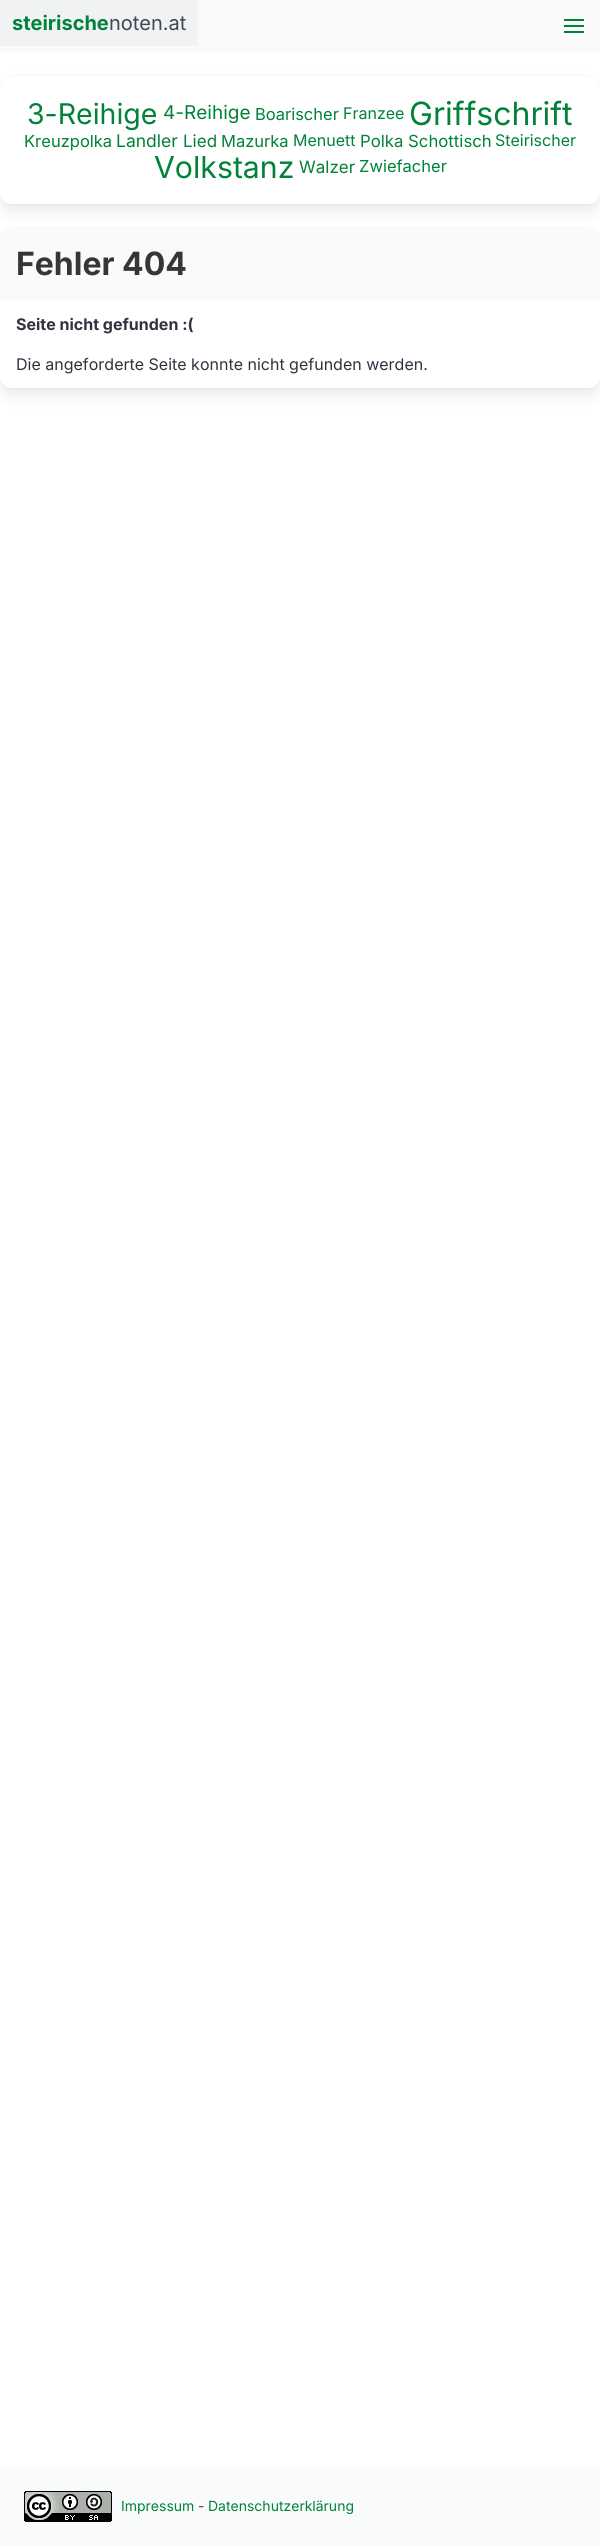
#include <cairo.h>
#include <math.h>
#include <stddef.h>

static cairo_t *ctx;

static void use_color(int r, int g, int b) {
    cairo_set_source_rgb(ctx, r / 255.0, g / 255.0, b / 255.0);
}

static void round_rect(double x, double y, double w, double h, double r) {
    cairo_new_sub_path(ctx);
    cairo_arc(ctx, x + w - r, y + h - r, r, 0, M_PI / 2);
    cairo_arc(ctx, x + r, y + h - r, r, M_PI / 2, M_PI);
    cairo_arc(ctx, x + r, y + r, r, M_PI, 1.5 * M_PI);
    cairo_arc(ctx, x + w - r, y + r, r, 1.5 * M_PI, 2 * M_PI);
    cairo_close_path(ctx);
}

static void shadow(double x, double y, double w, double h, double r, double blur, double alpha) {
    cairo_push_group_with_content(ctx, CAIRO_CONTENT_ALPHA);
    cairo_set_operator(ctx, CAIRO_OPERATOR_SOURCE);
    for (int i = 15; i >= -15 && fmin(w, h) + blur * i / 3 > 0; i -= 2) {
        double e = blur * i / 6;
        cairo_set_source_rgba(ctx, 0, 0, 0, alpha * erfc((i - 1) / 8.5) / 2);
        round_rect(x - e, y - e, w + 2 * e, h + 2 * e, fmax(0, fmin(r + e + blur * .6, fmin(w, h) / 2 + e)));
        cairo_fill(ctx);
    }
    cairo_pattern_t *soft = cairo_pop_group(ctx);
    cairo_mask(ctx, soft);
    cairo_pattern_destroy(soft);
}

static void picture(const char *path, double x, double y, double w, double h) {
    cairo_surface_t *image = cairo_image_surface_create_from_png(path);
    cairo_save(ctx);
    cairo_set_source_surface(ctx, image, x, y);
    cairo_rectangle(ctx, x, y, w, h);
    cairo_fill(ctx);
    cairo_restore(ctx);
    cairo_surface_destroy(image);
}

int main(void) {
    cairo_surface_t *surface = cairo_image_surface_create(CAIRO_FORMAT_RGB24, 600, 2546);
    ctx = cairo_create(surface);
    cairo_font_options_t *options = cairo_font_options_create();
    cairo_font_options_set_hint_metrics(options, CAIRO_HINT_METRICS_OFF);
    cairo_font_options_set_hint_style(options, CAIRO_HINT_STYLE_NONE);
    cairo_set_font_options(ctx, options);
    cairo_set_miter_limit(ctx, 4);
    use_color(255, 255, 255);
    cairo_paint(ctx);
    use_color(250, 250, 250);
    cairo_rectangle(ctx, 0, 0, 600, 52);
    cairo_fill(ctx);
    use_color(240, 242, 244);
    cairo_rectangle(ctx, 0, 0, 198, 46);
    cairo_fill(ctx);
    cairo_select_font_face(ctx, "Inter", CAIRO_FONT_SLANT_NORMAL, CAIRO_FONT_WEIGHT_BOLD);
    cairo_set_font_size(ctx, 20);
    use_color(0, 130, 57);
    cairo_move_to(ctx, 12, 30);
    cairo_show_text(ctx, "steirische");
    cairo_select_font_face(ctx, "Inter", CAIRO_FONT_SLANT_NORMAL, CAIRO_FONT_WEIGHT_NORMAL);
    use_color(64, 70, 84);
    cairo_move_to(ctx, 109, 30);
    cairo_show_text(ctx, "noten.at");
    use_color(0, 130, 57);
    cairo_rectangle(ctx, 564, 19, 20, 2);
    cairo_fill(ctx);
    cairo_rectangle(ctx, 564, 25, 20, 2);
    cairo_fill(ctx);
    cairo_rectangle(ctx, 564, 31, 20, 2);
    cairo_fill(ctx);
    round_rect(-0.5, 75.5, 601, 129, 12.5);
    use_color(250, 250, 250);
    cairo_set_line_width(ctx, 1);
    cairo_stroke(ctx);
    use_color(9, 10, 12);
    shadow(2, 86, 596, 124, 10, 8, 0.1);
    use_color(255, 255, 255);
    round_rect(0, 76, 600, 128, 12);
    cairo_fill(ctx);
    cairo_set_font_size(ctx, 28.5);
    use_color(0, 130, 57);
    cairo_move_to(ctx, 27, 124);
    cairo_show_text(ctx, "3-Reihige");
    cairo_set_font_size(ctx, 19);
    cairo_move_to(ctx, 163, 119);
    cairo_show_text(ctx, "4-Reihige");
    cairo_set_font_size(ctx, 16.5);
    cairo_move_to(ctx, 255, 120);
    cairo_show_text(ctx, "Boarischer");
    cairo_set_font_size(ctx, 16);
    cairo_move_to(ctx, 343, 119);
    cairo_show_text(ctx, "Franzee");
    cairo_set_font_size(ctx, 32);
    cairo_move_to(ctx, 409, 125);
    cairo_show_text(ctx, "Griffschrift");
    cairo_set_font_size(ctx, 16.5);
    cairo_move_to(ctx, 24, 147);
    cairo_show_text(ctx, "Kreuzpolka");
    cairo_set_font_size(ctx, 17.5);
    cairo_move_to(ctx, 116, 147);
    cairo_show_text(ctx, "Landler");
    cairo_set_font_size(ctx, 17);
    cairo_move_to(ctx, 183, 147);
    cairo_show_text(ctx, "Lied");
    cairo_set_font_size(ctx, 16.5);
    cairo_move_to(ctx, 221, 147);
    cairo_show_text(ctx, "Mazurka");
    cairo_set_font_size(ctx, 16);
    cairo_move_to(ctx, 293, 146);
    cairo_show_text(ctx, "Menuett");
    cairo_set_font_size(ctx, 16.75);
    cairo_move_to(ctx, 360, 147);
    cairo_show_text(ctx, "Polka Schottisch");
    cairo_set_font_size(ctx, 16);
    cairo_move_to(ctx, 495, 146);
    cairo_show_text(ctx, "Steirischer");
    cairo_set_font_size(ctx, 30.25);
    cairo_move_to(ctx, 154, 178);
    cairo_show_text(ctx, "Volkstanz");
    cairo_set_font_size(ctx, 17);
    cairo_move_to(ctx, 299, 173);
    cairo_show_text(ctx, "Walzer");
    cairo_set_font_size(ctx, 16.5);
    cairo_move_to(ctx, 359, 172);
    cairo_show_text(ctx, "Zwiefacher");
    round_rect(-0.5, 227.5, 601, 161, 12.5);
    use_color(250, 250, 250);
    cairo_stroke(ctx);
    cairo_save(ctx);
    cairo_set_fill_rule(ctx, CAIRO_FILL_RULE_EVEN_ODD);
    cairo_new_path(ctx);
    cairo_move_to(ctx, 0, 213);
    cairo_line_to(ctx, 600, 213);
    cairo_line_to(ctx, 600, 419);
    cairo_line_to(ctx, 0, 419);
    cairo_close_path(ctx);
    cairo_move_to(ctx, 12, 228);
    cairo_line_to(ctx, 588, 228);
    cairo_curve_to(ctx, 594.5, 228, 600, 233.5, 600, 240);
    cairo_line_to(ctx, 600, 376);
    cairo_curve_to(ctx, 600, 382.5, 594.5, 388, 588, 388);
    cairo_line_to(ctx, 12, 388);
    cairo_curve_to(ctx, 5.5, 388, 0, 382.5, 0, 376);
    cairo_line_to(ctx, 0, 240);
    cairo_curve_to(ctx, 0, 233.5, 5.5, 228, 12, 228);
    cairo_close_path(ctx);
    cairo_clip(ctx);
    use_color(9, 10, 12);
    shadow(2, 238, 596, 156, 10, 8, 0.1);
    cairo_restore(ctx);
    cairo_new_path(ctx);
    cairo_move_to(ctx, 12, 228);
    cairo_line_to(ctx, 588, 228);
    cairo_curve_to(ctx, 594.5, 228, 600, 233.5, 600, 240);
    cairo_line_to(ctx, 600, 300);
    cairo_line_to(ctx, 0, 300);
    cairo_line_to(ctx, 0, 240);
    cairo_curve_to(ctx, 0, 233.5, 5.5, 228, 12, 228);
    cairo_close_path(ctx);
    cairo_fill(ctx);
    cairo_select_font_face(ctx, "Inter", CAIRO_FONT_SLANT_NORMAL, CAIRO_FONT_WEIGHT_BOLD);
    cairo_set_font_size(ctx, 32);
    use_color(54, 54, 54);
    cairo_move_to(ctx, 16, 275);
    cairo_show_text(ctx, "Fehler 404");
    cairo_set_font_size(ctx, 16);
    use_color(46, 51, 61);
    cairo_move_to(ctx, 16, 330);
    cairo_show_text(ctx, "Seite nicht gefunden :(");
    cairo_select_font_face(ctx, "Inter", CAIRO_FONT_SLANT_NORMAL, CAIRO_FONT_WEIGHT_NORMAL);
    cairo_move_to(ctx, 16, 370);
    cairo_show_text(ctx, "Die angeforderte Seite konnte nicht gefunden werden.");
    use_color(249, 250, 251);
    cairo_rectangle(ctx, 0, 2467, 600, 79);
    cairo_fill(ctx);
    picture("img1.png", 24, 2491, 88, 31);
    cairo_set_font_size(ctx, 14);
    use_color(0, 130, 57);
    cairo_move_to(ctx, 121, 2511);
    cairo_show_text(ctx, "Impressum");
    use_color(64, 70, 84);
    cairo_move_to(ctx, 198, 2511);
    cairo_show_text(ctx, "-");
    use_color(0, 130, 57);
    cairo_move_to(ctx, 208, 2511);
    cairo_show_text(ctx, "Datenschutzerklärung");
    cairo_surface_write_to_png(surface, "result.png");
    cairo_font_options_destroy(options);
    cairo_destroy(ctx);
    cairo_surface_destroy(surface);
    return 0;
}
